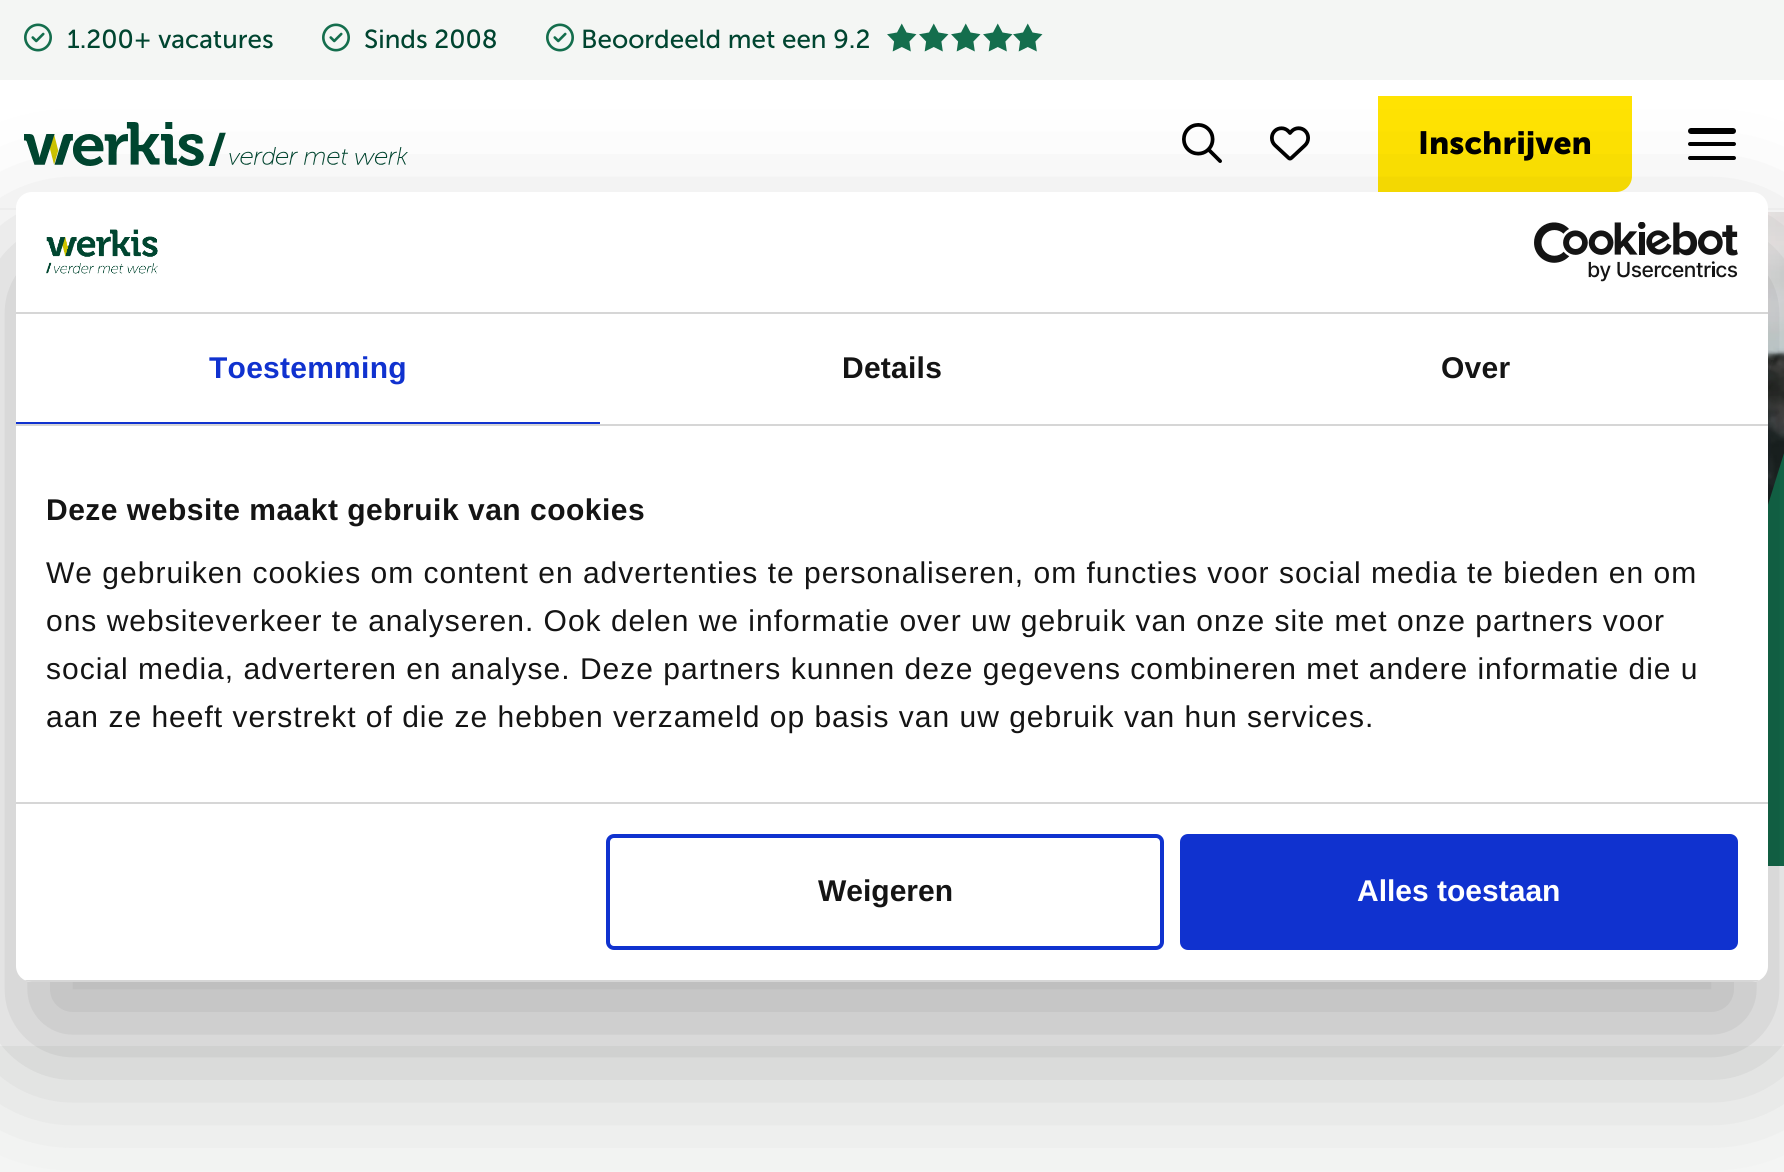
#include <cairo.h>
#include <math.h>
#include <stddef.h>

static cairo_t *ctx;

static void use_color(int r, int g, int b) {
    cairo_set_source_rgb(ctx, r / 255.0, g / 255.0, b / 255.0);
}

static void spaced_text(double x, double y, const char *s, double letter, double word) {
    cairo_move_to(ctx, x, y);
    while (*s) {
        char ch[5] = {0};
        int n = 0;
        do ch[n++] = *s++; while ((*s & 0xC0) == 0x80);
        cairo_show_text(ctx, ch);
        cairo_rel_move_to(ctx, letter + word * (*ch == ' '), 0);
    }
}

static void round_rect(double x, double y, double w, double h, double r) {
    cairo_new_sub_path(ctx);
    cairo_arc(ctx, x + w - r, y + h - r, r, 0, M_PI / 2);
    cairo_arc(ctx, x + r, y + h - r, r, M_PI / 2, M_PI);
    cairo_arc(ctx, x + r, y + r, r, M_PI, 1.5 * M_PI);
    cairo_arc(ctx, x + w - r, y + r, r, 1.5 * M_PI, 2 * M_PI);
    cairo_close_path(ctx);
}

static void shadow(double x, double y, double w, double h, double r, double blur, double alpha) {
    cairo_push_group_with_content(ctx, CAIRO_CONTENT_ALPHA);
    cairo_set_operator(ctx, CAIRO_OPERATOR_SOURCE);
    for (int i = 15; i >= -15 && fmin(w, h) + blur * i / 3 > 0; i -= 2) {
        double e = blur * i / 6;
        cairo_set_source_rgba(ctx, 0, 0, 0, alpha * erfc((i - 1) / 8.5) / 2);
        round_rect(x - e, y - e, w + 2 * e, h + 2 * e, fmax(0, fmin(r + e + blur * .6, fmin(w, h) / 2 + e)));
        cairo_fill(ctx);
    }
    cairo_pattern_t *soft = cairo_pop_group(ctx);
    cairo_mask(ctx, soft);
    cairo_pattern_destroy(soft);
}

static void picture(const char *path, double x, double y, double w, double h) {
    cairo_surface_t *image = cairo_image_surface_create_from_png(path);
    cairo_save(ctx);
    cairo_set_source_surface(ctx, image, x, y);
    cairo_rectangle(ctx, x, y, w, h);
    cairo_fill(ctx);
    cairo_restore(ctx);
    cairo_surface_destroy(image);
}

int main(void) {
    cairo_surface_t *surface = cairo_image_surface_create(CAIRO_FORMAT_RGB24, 1784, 1172);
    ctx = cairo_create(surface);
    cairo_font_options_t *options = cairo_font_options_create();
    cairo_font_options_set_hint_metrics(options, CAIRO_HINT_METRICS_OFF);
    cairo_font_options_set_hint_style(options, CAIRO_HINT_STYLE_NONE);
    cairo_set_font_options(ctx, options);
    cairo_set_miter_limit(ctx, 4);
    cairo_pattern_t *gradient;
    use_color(255, 255, 255);
    cairo_paint(ctx);
    use_color(244, 246, 244);
    cairo_rectangle(ctx, 0, 0, 1784, 80);
    cairo_fill(ctx);
    picture("img1.png", 24, 23, 28, 29);
    cairo_select_font_face(ctx, "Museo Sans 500", CAIRO_FONT_SLANT_NORMAL, CAIRO_FONT_WEIGHT_NORMAL);
    cairo_set_font_size(ctx, 26);
    use_color(0, 69, 48);
    cairo_move_to(ctx, 67, 48);
    cairo_show_text(ctx, "1.200+ vacatures");
    picture("img1.png", 322, 23, 28, 29);
    cairo_move_to(ctx, 364, 48);
    cairo_show_text(ctx, "Sinds 2008");
    picture("img1.png", 546, 23, 28, 29);
    cairo_move_to(ctx, 581, 48);
    cairo_show_text(ctx, "Beoordeeld met een 9.2");
    picture("img2.png", 887, 23, 30, 29);
    picture("img2.png", 919, 23, 30, 29);
    picture("img2.png", 951, 23, 30, 29);
    picture("img2.png", 983, 23, 30, 29);
    picture("img2.png", 1013, 23, 30, 29);
    picture("img3.png", 24, 122, 384, 44);
    picture("img4.png", 1182, 123, 40, 40);
    picture("img5.png", 1270, 126, 40, 35);
    use_color(255, 227, 2);
    cairo_new_path(ctx);
    cairo_move_to(ctx, 1378, 96);
    cairo_line_to(ctx, 1632, 96);
    cairo_line_to(ctx, 1632, 176);
    cairo_curve_to(ctx, 1632, 185, 1625, 192, 1616, 192);
    cairo_line_to(ctx, 1378, 192);
    cairo_close_path(ctx);
    cairo_fill(ctx);
    cairo_select_font_face(ctx, "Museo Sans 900", CAIRO_FONT_SLANT_NORMAL, CAIRO_FONT_WEIGHT_BOLD);
    cairo_set_font_size(ctx, 32);
    use_color(0, 0, 0);
    cairo_move_to(ctx, 1418, 154);
    cairo_show_text(ctx, "Inschrijven");
    round_rect(1688, 128, 48, 6, 3);
    cairo_fill(ctx);
    round_rect(1688, 142, 48, 4, 2);
    cairo_fill(ctx);
    round_rect(1688, 156, 48, 4, 2);
    cairo_fill(ctx);
    use_color(249, 249, 249);
    cairo_rectangle(ctx, 0, 208, 1784, 2);
    cairo_fill(ctx);
    picture("img6.png", 1768, 212, 16, 293);
    cairo_new_path(ctx);
    cairo_move_to(ctx, 933, 862.5);
    cairo_line_to(ctx, 1126, 333);
    cairo_move_to(ctx, 1068, 862.5);
    cairo_line_to(ctx, 1261, 333);
    cairo_move_to(ctx, 1200, 862.5);
    cairo_line_to(ctx, 1393, 333);
    cairo_move_to(ctx, 1333.5, 862.5);
    cairo_line_to(ctx, 1526.5, 333);
    cairo_move_to(ctx, 1459, 862.5);
    cairo_line_to(ctx, 1652, 333);
    cairo_move_to(ctx, 1590, 862.5);
    cairo_line_to(ctx, 1783, 333);
    gradient = cairo_pattern_create_linear(1358, 333, 1358, 863);
    cairo_pattern_add_color_stop_rgba(gradient, 0, 1, 1, 1, 0);
    cairo_pattern_add_color_stop_rgba(gradient, 1, 1, 1, 1, 0.36);
    cairo_set_source(ctx, gradient);
    cairo_pattern_destroy(gradient);
    cairo_set_line_width(ctx, 1.1);
    cairo_set_line_cap(ctx, CAIRO_LINE_CAP_SQUARE);
    cairo_stroke(ctx);
    use_color(20, 110, 77);
    cairo_set_fill_rule(ctx, CAIRO_FILL_RULE_EVEN_ODD);
    cairo_new_path(ctx);
    cairo_move_to(ctx, 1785, 450);
    cairo_line_to(ctx, 1656, 866);
    cairo_line_to(ctx, 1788, 866);
    cairo_curve_to(ctx, 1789, 681, 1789, 542, 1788, 450);
    cairo_close_path(ctx);
    cairo_fill(ctx);
    use_color(245, 246, 245);
    cairo_rectangle(ctx, 0, 1046, 1784, 126);
    cairo_fill(ctx);
    use_color(0, 0, 0);
    shadow(16, 256, 1752, 790, 16, 68, 0.3);
    use_color(255, 255, 255);
    round_rect(16, 192, 1752, 790, 16);
    cairo_fill(ctx);
    use_color(214, 214, 214);
    cairo_rectangle(ctx, 16, 312, 1752, 2);
    cairo_fill(ctx);
    picture("img7.png", 46, 229, 112, 45);
    picture("img8.png", 1534, 222, 204, 60);
    cairo_rectangle(ctx, 16, 424, 1752, 2);
    cairo_fill(ctx);
    use_color(16, 50, 207);
    cairo_rectangle(ctx, 16, 422, 584, 2);
    cairo_fill(ctx);
    cairo_select_font_face(ctx, "Liberation Sans", CAIRO_FONT_SLANT_NORMAL, CAIRO_FONT_WEIGHT_BOLD);
    cairo_set_font_size(ctx, 30);
    spaced_text(209, 378, "Toestemming", 0.25, 0);
    use_color(20, 20, 20);
    spaced_text(842, 378, "Details", 0.25, 0);
    spaced_text(1441, 378, "Over", 0.25, 0);
    use_color(214, 214, 214);
    cairo_rectangle(ctx, 16, 802, 1752, 2);
    cairo_fill(ctx);
    use_color(20, 20, 20);
    spaced_text(46, 520, "Deze website maakt gebruik van cookies", 0.5, 0);
    cairo_select_font_face(ctx, "Liberation Sans", CAIRO_FONT_SLANT_NORMAL, CAIRO_FONT_WEIGHT_NORMAL);
    spaced_text(46, 583, "We gebruiken cookies om content en advertenties te personaliseren, om functies voor social media te bieden en om", 1, 0);
    spaced_text(46, 631, "ons websiteverkeer te analyseren. Ook delen we informatie over uw gebruik van onze site met onze partners voor", 1, 0);
    spaced_text(46, 679, "social media, adverteren en analyse. Deze partners kunnen deze gegevens combineren met andere informatie die u", 1, 0);
    spaced_text(46, 727, "aan ze heeft verstrekt of die ze hebben verzameld op basis van uw gebruik van hun services.", 1, 0);
    cairo_save(ctx);
    cairo_set_fill_rule(ctx, CAIRO_FILL_RULE_WINDING);
    round_rect(16, 192, 1752, 790, 16);
    cairo_clip(ctx);
    use_color(214, 214, 214);
    cairo_rectangle(ctx, 16, 980, 1752, 2);
    cairo_fill(ctx);
    cairo_restore(ctx);
    round_rect(608, 836, 554, 112, 6);
    use_color(16, 50, 207);
    cairo_set_line_width(ctx, 4);
    cairo_set_line_cap(ctx, CAIRO_LINE_CAP_BUTT);
    cairo_stroke(ctx);
    cairo_select_font_face(ctx, "Liberation Sans", CAIRO_FONT_SLANT_NORMAL, CAIRO_FONT_WEIGHT_BOLD);
    use_color(20, 20, 20);
    cairo_move_to(ctx, 818, 901);
    cairo_show_text(ctx, "Weigeren");
    use_color(16, 50, 207);
    round_rect(1182, 836, 554, 112, 6);
    cairo_fill_preserve(ctx);
    cairo_stroke(ctx);
    use_color(255, 255, 255);
    cairo_move_to(ctx, 1357, 901);
    cairo_show_text(ctx, "Alles toestaan");
    cairo_surface_write_to_png(surface, "result.png");
    cairo_font_options_destroy(options);
    cairo_destroy(ctx);
    cairo_surface_destroy(surface);
    return 0;
}
